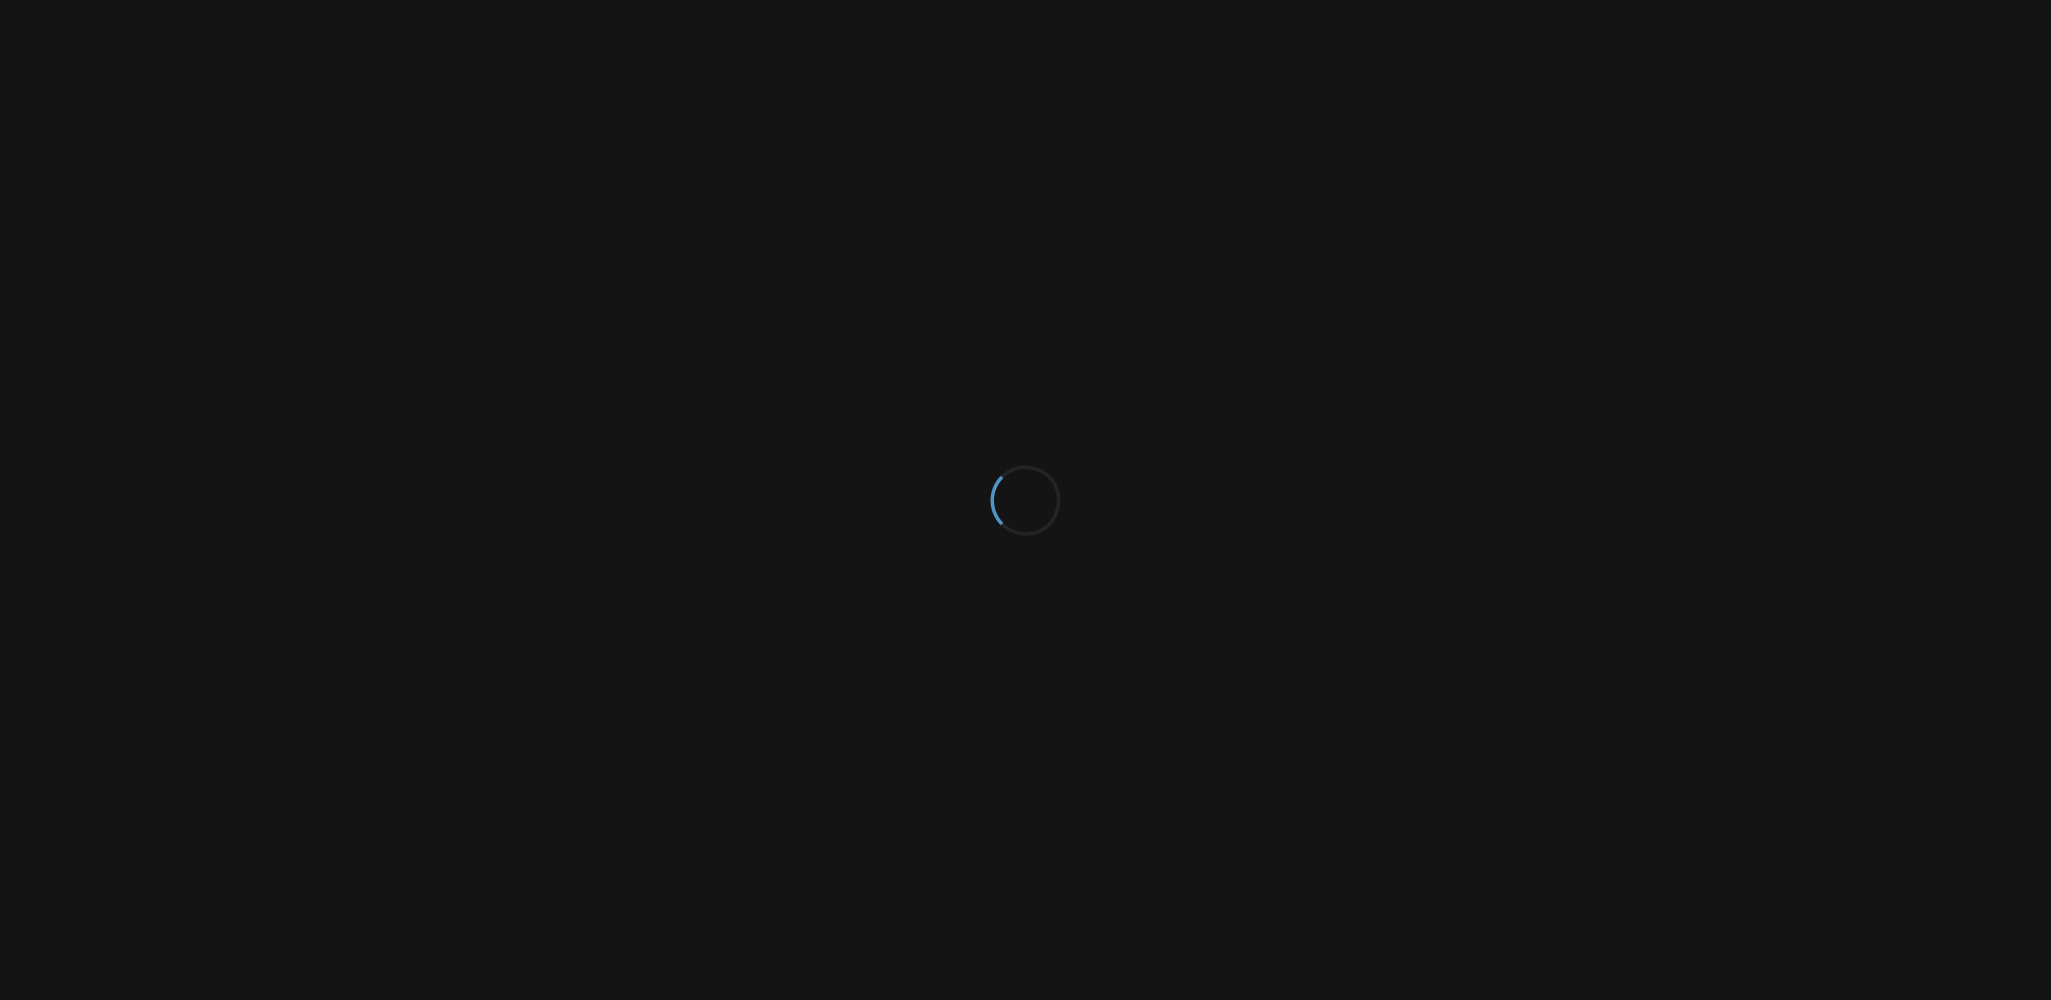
#include <cairo.h>
#include <math.h>
#include <stddef.h>

static cairo_t *ctx;

static void use_color(int r, int g, int b) {
    cairo_set_source_rgb(ctx, r / 255.0, g / 255.0, b / 255.0);
}

int main(void) {
    cairo_surface_t *surface = cairo_image_surface_create(CAIRO_FORMAT_RGB24, 2051, 1000);
    ctx = cairo_create(surface);
    cairo_font_options_t *options = cairo_font_options_create();
    cairo_font_options_set_hint_metrics(options, CAIRO_HINT_METRICS_OFF);
    cairo_font_options_set_hint_style(options, CAIRO_HINT_STYLE_NONE);
    cairo_set_font_options(ctx, options);
    cairo_set_miter_limit(ctx, 4);
    use_color(20, 20, 20);
    cairo_paint(ctx);
    cairo_new_path(ctx);
    cairo_move_to(ctx, 1002, 477);
    cairo_curve_to(ctx, 1010, 469, 1021, 465.5, 1032, 468);
    cairo_curve_to(ctx, 1071, 475.5, 1065.5, 534, 1025.5, 534);
    cairo_curve_to(ctx, 1016.5, 534, 1008, 530, 1002, 524);
    use_color(36, 36, 36);
    cairo_set_line_width(ctx, 3.5);
    cairo_stroke(ctx);
    cairo_new_path(ctx);
    cairo_move_to(ctx, 1002, 524);
    cairo_curve_to(ctx, 989, 511, 989, 490, 1002, 477);
    use_color(77, 150, 199);
    cairo_stroke(ctx);
    cairo_surface_write_to_png(surface, "result.png");
    cairo_font_options_destroy(options);
    cairo_destroy(ctx);
    cairo_surface_destroy(surface);
    return 0;
}
